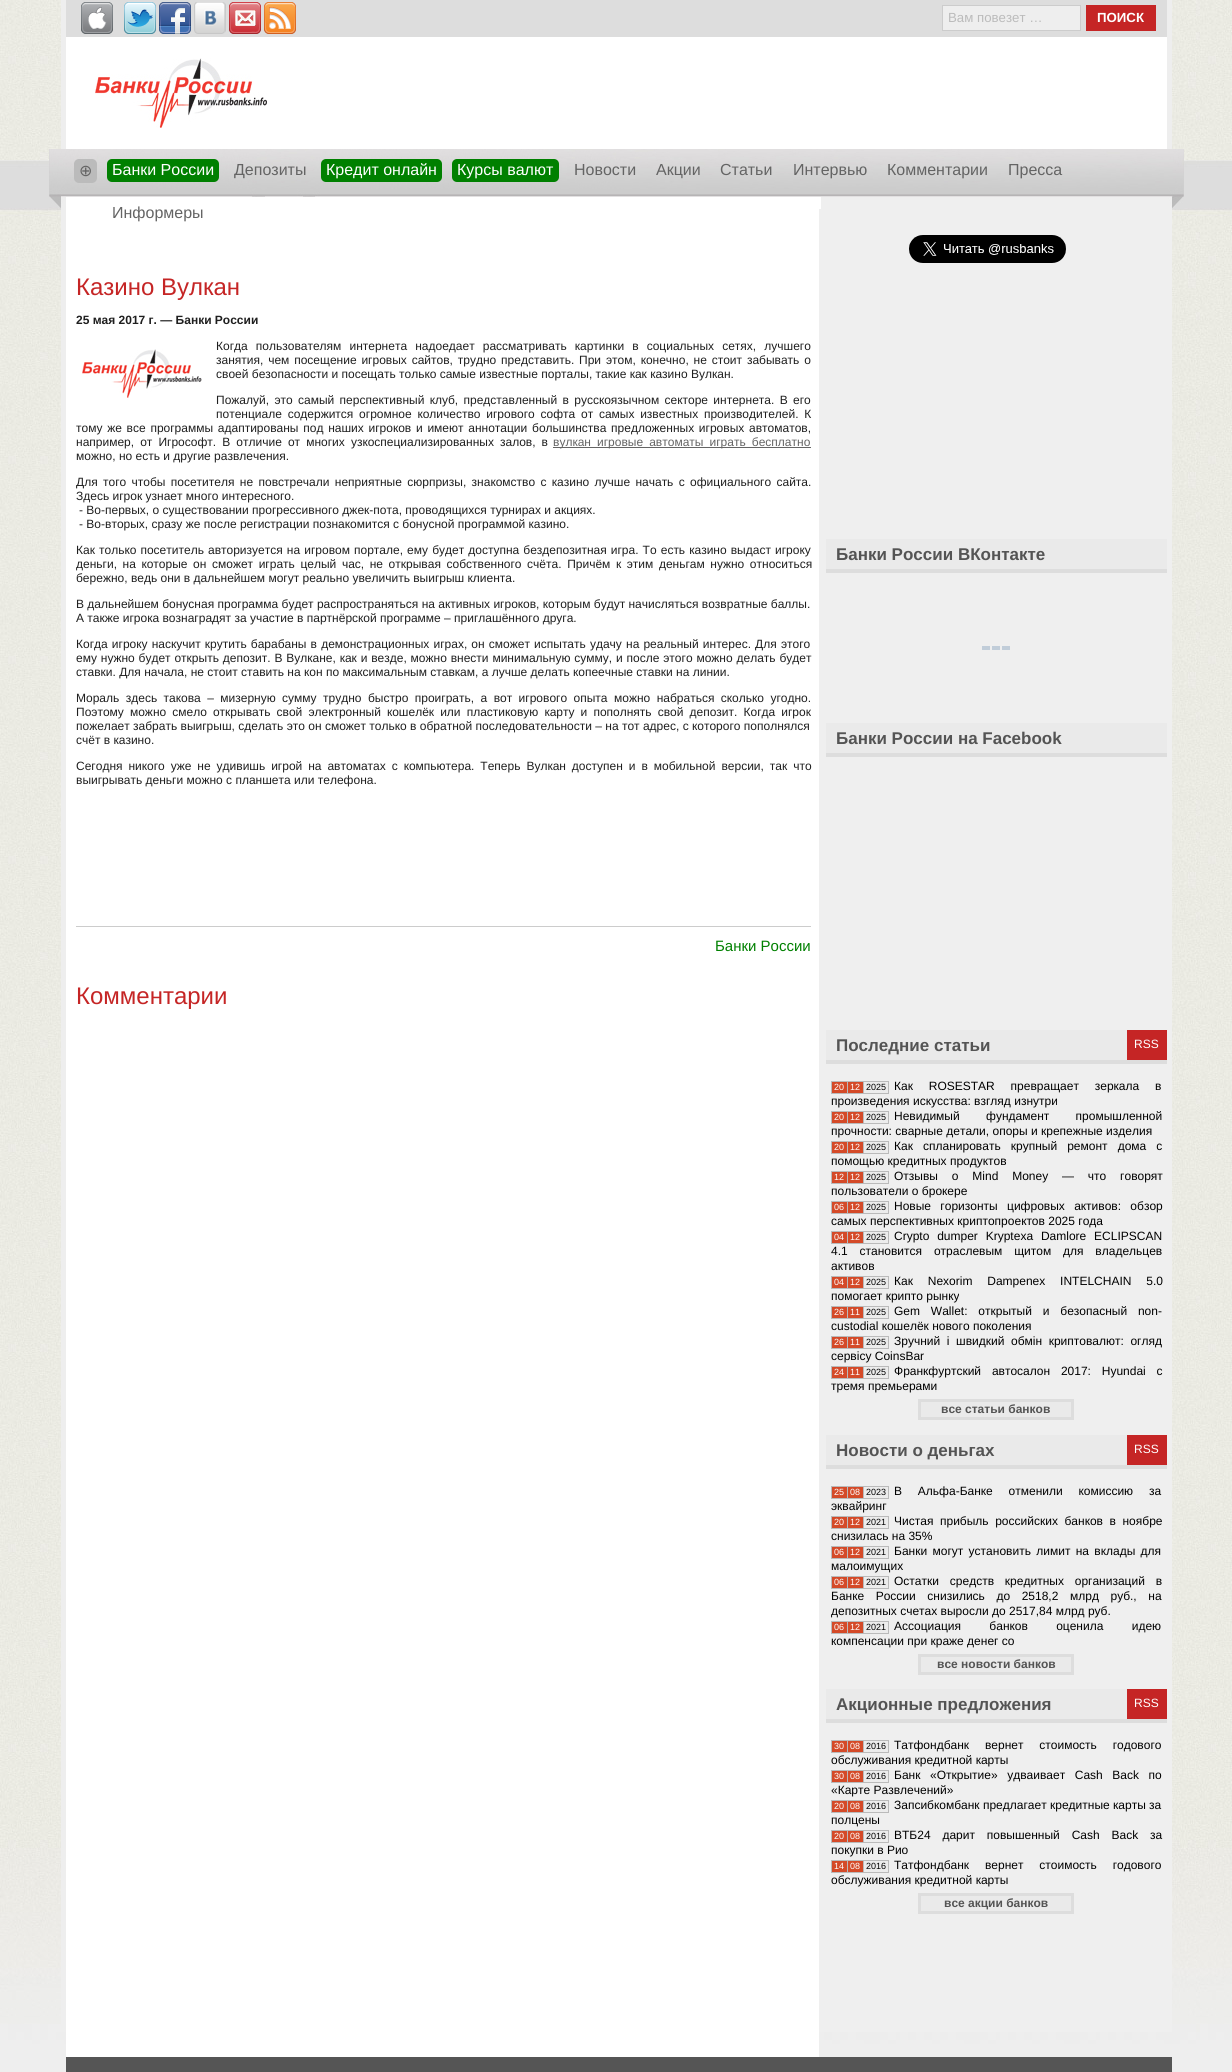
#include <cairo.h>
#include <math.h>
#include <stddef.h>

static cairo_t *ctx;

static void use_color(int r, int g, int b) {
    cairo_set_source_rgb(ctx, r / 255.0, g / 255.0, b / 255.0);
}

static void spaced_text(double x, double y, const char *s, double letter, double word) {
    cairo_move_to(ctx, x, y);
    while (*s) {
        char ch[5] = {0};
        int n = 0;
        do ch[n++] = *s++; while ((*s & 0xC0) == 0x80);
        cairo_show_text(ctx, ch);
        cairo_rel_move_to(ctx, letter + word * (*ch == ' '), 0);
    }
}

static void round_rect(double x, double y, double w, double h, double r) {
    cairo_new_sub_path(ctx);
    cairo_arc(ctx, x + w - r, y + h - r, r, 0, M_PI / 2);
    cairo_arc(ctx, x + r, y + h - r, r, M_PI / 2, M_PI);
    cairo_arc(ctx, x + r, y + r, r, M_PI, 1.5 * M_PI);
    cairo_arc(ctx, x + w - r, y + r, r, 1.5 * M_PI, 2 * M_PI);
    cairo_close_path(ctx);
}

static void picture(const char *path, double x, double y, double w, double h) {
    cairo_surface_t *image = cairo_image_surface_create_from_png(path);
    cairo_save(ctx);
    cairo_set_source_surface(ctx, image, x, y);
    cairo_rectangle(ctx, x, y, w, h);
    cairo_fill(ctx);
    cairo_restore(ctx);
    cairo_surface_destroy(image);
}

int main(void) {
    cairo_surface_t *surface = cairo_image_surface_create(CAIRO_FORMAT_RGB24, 1232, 2072);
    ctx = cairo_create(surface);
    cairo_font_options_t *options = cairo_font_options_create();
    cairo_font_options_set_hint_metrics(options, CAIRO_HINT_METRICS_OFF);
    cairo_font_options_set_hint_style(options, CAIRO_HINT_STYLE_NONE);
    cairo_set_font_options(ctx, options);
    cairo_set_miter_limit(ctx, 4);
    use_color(255, 255, 255);
    cairo_paint(ctx);
    picture("img1.png", 0, 0, 1232, 2072);
    use_color(221, 221, 221);
    cairo_rectangle(ctx, 66, 0, 1101, 37);
    cairo_fill(ctx);
    use_color(238, 238, 238);
    cairo_rectangle(ctx, 1167, 0, 5, 149);
    cairo_fill(ctx);
    cairo_rectangle(ctx, 61, 0, 5, 149);
    cairo_fill(ctx);
    picture("img2.png", 81, 2, 32, 32);
    picture("img3.png", 124, 2, 32, 32);
    picture("img4.png", 159, 2, 32, 32);
    picture("img5.png", 194, 2, 32, 32);
    picture("img6.png", 229, 2, 32, 32);
    picture("img7.png", 264, 2, 32, 32);
    cairo_rectangle(ctx, 942.5, 5.5, 138, 25);
    cairo_fill_preserve(ctx);
    use_color(204, 204, 204);
    cairo_set_line_width(ctx, 1);
    cairo_stroke(ctx);
    cairo_select_font_face(ctx, "Liberation Sans", CAIRO_FONT_SLANT_NORMAL, CAIRO_FONT_WEIGHT_NORMAL);
    cairo_set_font_size(ctx, 13.25);
    use_color(187, 187, 187);
    cairo_move_to(ctx, 948, 22);
    cairo_show_text(ctx, "Вам повезет …");
    use_color(197, 37, 37);
    cairo_rectangle(ctx, 1086, 5, 70, 26);
    cairo_fill(ctx);
    cairo_select_font_face(ctx, "Liberation Sans", CAIRO_FONT_SLANT_NORMAL, CAIRO_FONT_WEIGHT_BOLD);
    use_color(255, 255, 255);
    cairo_move_to(ctx, 1097, 22);
    cairo_show_text(ctx, "ПОИСК");
    cairo_rectangle(ctx, 66, 37, 1101, 112);
    cairo_fill(ctx);
    picture("img8.png", 95, 58, 172, 70);
    picture("img9.png", 49, 149, 1135, 60);
    use_color(187, 187, 187);
    round_rect(74, 159, 23, 24, 5);
    cairo_fill(ctx);
    cairo_select_font_face(ctx, "DejaVu Sans", CAIRO_FONT_SLANT_NORMAL, CAIRO_FONT_WEIGHT_NORMAL);
    cairo_set_font_size(ctx, 16);
    use_color(100, 100, 100);
    cairo_move_to(ctx, 79, 176);
    cairo_show_text(ctx, "⊕");
    use_color(0, 128, 0);
    round_rect(107, 159, 112, 23, 5);
    cairo_fill(ctx);
    cairo_select_font_face(ctx, "Liberation Sans", CAIRO_FONT_SLANT_NORMAL, CAIRO_FONT_WEIGHT_NORMAL);
    use_color(255, 255, 255);
    cairo_move_to(ctx, 112, 175);
    cairo_show_text(ctx, "Банки России");
    use_color(100, 100, 100);
    cairo_move_to(ctx, 234, 175);
    cairo_show_text(ctx, "Депозиты");
    use_color(0, 128, 0);
    round_rect(321, 159, 121, 23, 5);
    cairo_fill(ctx);
    use_color(255, 255, 255);
    cairo_move_to(ctx, 326, 175);
    cairo_show_text(ctx, "Кредит онлайн");
    use_color(0, 128, 0);
    round_rect(452, 159, 107, 23, 5);
    cairo_fill(ctx);
    use_color(255, 255, 255);
    cairo_move_to(ctx, 457, 175);
    cairo_show_text(ctx, "Курсы валют");
    use_color(100, 100, 100);
    cairo_move_to(ctx, 574, 175);
    cairo_show_text(ctx, "Новости");
    cairo_move_to(ctx, 656, 175);
    cairo_show_text(ctx, "Акции");
    cairo_move_to(ctx, 720, 175);
    cairo_show_text(ctx, "Статьи");
    cairo_move_to(ctx, 793, 175);
    cairo_show_text(ctx, "Интервью");
    cairo_move_to(ctx, 887, 175);
    cairo_show_text(ctx, "Комментарии");
    cairo_move_to(ctx, 1008, 175);
    cairo_show_text(ctx, "Пресса");
    use_color(255, 255, 255);
    cairo_rectangle(ctx, 66, 209, 753, 1848);
    cairo_fill(ctx);
    use_color(100, 100, 100);
    cairo_move_to(ctx, 112, 218);
    cairo_show_text(ctx, "Информеры");
    use_color(239, 239, 239);
    cairo_rectangle(ctx, 819, 209, 353, 1823);
    cairo_fill(ctx);
    use_color(238, 238, 238);
    cairo_rectangle(ctx, 61, 209, 5, 1823);
    cairo_fill(ctx);
    cairo_set_font_size(ctx, 24);
    use_color(197, 37, 37);
    cairo_move_to(ctx, 76, 295);
    cairo_show_text(ctx, "Казино Вулкан");
    cairo_select_font_face(ctx, "Liberation Sans", CAIRO_FONT_SLANT_NORMAL, CAIRO_FONT_WEIGHT_BOLD);
    cairo_set_font_size(ctx, 12);
    use_color(31, 31, 31);
    cairo_move_to(ctx, 76, 324);
    cairo_show_text(ctx, "25 мая 2017 г. — Банки России");
    picture("img10.png", 82, 349, 120, 49);
    cairo_select_font_face(ctx, "Liberation Sans", CAIRO_FONT_SLANT_NORMAL, CAIRO_FONT_WEIGHT_NORMAL);
    spaced_text(216, 350, "Когда пользователям интернета надоедает рассматривать картинки в социальных сетях, лучшего", 0, 4.75);
    spaced_text(216, 364, "занятия, чем посещение игровых сайтов, трудно представить. При этом, конечно, не стоит забывать о", 0, 1.5);
    cairo_move_to(ctx, 216, 378);
    cairo_show_text(ctx, "своей безопасности и посещать только самые известные порталы, такие как казино Вулкан.");
    spaced_text(216, 404, "Пожалуй, это самый перспективный клуб, представленный в русскоязычном секторе интернета. В его", 0, 2);
    spaced_text(216, 418, "потенциале содержится огромное количество игрового софта от самых известных производителей. К", 0, 2.4);
    spaced_text(76, 432, "тому же все программы адаптированы под наших игроков и имеют аннотации большинства предложенных игровых автоматов,", 0, 1.4);
    spaced_text(76, 446, "например, от Игрософт. В отличие от многих узкоспециализированных залов, в", 0, 2.75);
    use_color(100, 100, 100);
    cairo_rectangle(ctx, 553, 447, 258, 1);
    cairo_fill(ctx);
    spaced_text(553, 446, "вулкан игровые автоматы играть бесплатно", 0, 2.75);
    use_color(31, 31, 31);
    cairo_move_to(ctx, 76, 460);
    cairo_show_text(ctx, "можно, но есть и другие развлечения.");
    spaced_text(76, 486, "Для того чтобы посетителя не повстречали неприятные сюрпризы, знакомство с казино лучше начать с официального сайта.", 0, 2);
    cairo_move_to(ctx, 76, 500);
    cairo_show_text(ctx, "Здесь игрок узнает много интересного.");
    cairo_move_to(ctx, 79, 514);
    cairo_show_text(ctx, "- Во-первых, о существовании прогрессивного джек-пота, проводящихся турнирах и акциях.");
    cairo_move_to(ctx, 79, 528);
    cairo_show_text(ctx, "- Во-вторых, сразу же после регистрации познакомится с бонусной программой казино.");
    spaced_text(76, 554, "Как только посетитель авторизуется на игровом портале, ему будет доступна бездепозитная игра. То есть казино выдаст игроку", 0, 0.75);
    spaced_text(76, 568, "деньги, на которые он сможет играть целый час, не открывая собственного счёта. Причём к этим деньгам нужно относиться", 0, 2.25);
    cairo_move_to(ctx, 76, 582);
    cairo_show_text(ctx, "бережно, ведь они в дальнейшем могут реально увеличить выигрыш клиента.");
    cairo_move_to(ctx, 76, 608);
    cairo_show_text(ctx, "В дальнейшем бонусная программа будет распространяться на активных игроков, которым будут начисляться возвратные баллы.");
    cairo_move_to(ctx, 76, 622);
    cairo_show_text(ctx, "А также игрока вознаградят за участие в партнёрской программе – приглашённого друга.");
    spaced_text(76, 648, "Когда игроку наскучит крутить барабаны в демонстрационных играх, он сможет испытать удачу на реальный интерес. Для этого", 0, 0.8);
    spaced_text(76, 662, "ему нужно будет открыть депозит. В Вулкане, как и везде, можно внести минимальную сумму, и после этого можно делать будет", 0, 0.5);
    cairo_move_to(ctx, 76, 676);
    cairo_show_text(ctx, "ставки. Для начала, не стоит ставить на кон по максимальным ставкам, а лучше делать копеечные ставки на линии.");
    spaced_text(76, 702, "Мораль здесь такова – мизерную сумму трудно быстро проиграть, а вот игрового опыта можно набраться сколько угодно.", 0, 3.1);
    spaced_text(76, 716, "Поэтому можно смело открывать свой электронный кошелёк или пластиковую карту и пополнять свой депозит. Когда игрок", 0, 2.75);
    cairo_move_to(ctx, 76, 730);
    cairo_show_text(ctx, "пожелает забрать выигрыш, сделать это он сможет только в обратной последовательности – на тот адрес, с которого пополнялся");
    cairo_move_to(ctx, 76, 744);
    cairo_show_text(ctx, "счёт в казино.");
    spaced_text(76, 770, "Сегодня никого уже не удивишь игрой на автоматах с компьютера. Теперь Вулкан доступен и в мобильной версии, так что", 0, 2.6);
    cairo_move_to(ctx, 76, 784);
    cairo_show_text(ctx, "выигрывать деньги можно с планшета или телефона.");
    use_color(204, 204, 204);
    cairo_rectangle(ctx, 76, 926, 735, 1);
    cairo_fill(ctx);
    cairo_set_font_size(ctx, 15);
    use_color(0, 128, 0);
    cairo_move_to(ctx, 715, 951);
    cairo_show_text(ctx, "Банки России");
    cairo_set_font_size(ctx, 24);
    use_color(197, 37, 37);
    cairo_move_to(ctx, 76, 1004);
    cairo_show_text(ctx, "Комментарии");
    picture("img11.png", 909, 235, 157, 28);
    use_color(234, 234, 234);
    cairo_rectangle(ctx, 826, 539, 341, 30);
    cairo_fill(ctx);
    use_color(221, 221, 221);
    cairo_rectangle(ctx, 826, 569, 341, 4);
    cairo_fill(ctx);
    cairo_select_font_face(ctx, "Liberation Sans", CAIRO_FONT_SLANT_NORMAL, CAIRO_FONT_WEIGHT_BOLD);
    cairo_set_font_size(ctx, 17);
    use_color(84, 84, 84);
    cairo_move_to(ctx, 836, 560);
    cairo_show_text(ctx, "Банки России ВКонтакте");
    picture("img12.png", 982, 646, 28, 4);
    use_color(234, 234, 234);
    cairo_rectangle(ctx, 826, 723, 341, 30);
    cairo_fill(ctx);
    use_color(221, 221, 221);
    cairo_rectangle(ctx, 826, 753, 341, 4);
    cairo_fill(ctx);
    use_color(84, 84, 84);
    cairo_move_to(ctx, 836, 744);
    cairo_show_text(ctx, "Банки России на Facebook");
    use_color(234, 234, 234);
    cairo_rectangle(ctx, 826, 1030, 301, 30);
    cairo_fill(ctx);
    use_color(221, 221, 221);
    cairo_rectangle(ctx, 826, 1060, 341, 4);
    cairo_fill(ctx);
    use_color(84, 84, 84);
    cairo_move_to(ctx, 836, 1051);
    cairo_show_text(ctx, "Последние статьи");
    use_color(197, 37, 37);
    cairo_rectangle(ctx, 1127, 1030, 40, 30);
    cairo_fill(ctx);
    cairo_select_font_face(ctx, "Liberation Sans", CAIRO_FONT_SLANT_NORMAL, CAIRO_FONT_WEIGHT_NORMAL);
    cairo_set_font_size(ctx, 12);
    use_color(255, 255, 255);
    cairo_move_to(ctx, 1134, 1048);
    cairo_show_text(ctx, "RSS");
    cairo_rectangle(ctx, 831.5, 1081.5, 57, 12);
    use_color(186, 186, 186);
    cairo_stroke(ctx);
    use_color(212, 74, 40);
    cairo_rectangle(ctx, 832, 1082, 15, 11);
    cairo_fill(ctx);
    use_color(186, 186, 186);
    cairo_rectangle(ctx, 847, 1082, 1, 11);
    cairo_fill(ctx);
    cairo_set_font_size(ctx, 9);
    use_color(255, 255, 255);
    cairo_move_to(ctx, 834, 1090);
    cairo_show_text(ctx, "20");
    use_color(212, 74, 40);
    cairo_rectangle(ctx, 848, 1082, 15, 11);
    cairo_fill(ctx);
    use_color(186, 186, 186);
    cairo_rectangle(ctx, 863, 1082, 1, 11);
    cairo_fill(ctx);
    use_color(255, 255, 255);
    cairo_move_to(ctx, 850, 1090);
    cairo_show_text(ctx, "12");
    use_color(236, 236, 236);
    cairo_rectangle(ctx, 864, 1082, 24, 11);
    cairo_fill(ctx);
    use_color(0, 0, 0);
    cairo_move_to(ctx, 866, 1090);
    cairo_show_text(ctx, "2025");
    cairo_set_font_size(ctx, 12);
    spaced_text(894, 1090, "Как ROSESTAR превращает зеркала в", 0, 12.5);
    cairo_move_to(ctx, 831, 1105);
    cairo_show_text(ctx, "произведения искусства: взгляд изнутри");
    cairo_rectangle(ctx, 831.5, 1111.5, 57, 12);
    use_color(186, 186, 186);
    cairo_stroke(ctx);
    use_color(212, 74, 40);
    cairo_rectangle(ctx, 832, 1112, 15, 11);
    cairo_fill(ctx);
    use_color(186, 186, 186);
    cairo_rectangle(ctx, 847, 1112, 1, 11);
    cairo_fill(ctx);
    cairo_set_font_size(ctx, 9);
    use_color(255, 255, 255);
    cairo_move_to(ctx, 834, 1120);
    cairo_show_text(ctx, "20");
    use_color(212, 74, 40);
    cairo_rectangle(ctx, 848, 1112, 15, 11);
    cairo_fill(ctx);
    use_color(186, 186, 186);
    cairo_rectangle(ctx, 863, 1112, 1, 11);
    cairo_fill(ctx);
    use_color(255, 255, 255);
    cairo_move_to(ctx, 850, 1120);
    cairo_show_text(ctx, "12");
    use_color(236, 236, 236);
    cairo_rectangle(ctx, 864, 1112, 24, 11);
    cairo_fill(ctx);
    use_color(0, 0, 0);
    cairo_move_to(ctx, 866, 1120);
    cairo_show_text(ctx, "2025");
    cairo_set_font_size(ctx, 12);
    spaced_text(894, 1120, "Невидимый фундамент промышленной", 0, 23);
    cairo_move_to(ctx, 831, 1135);
    cairo_show_text(ctx, "прочности: сварные детали, опоры и крепежные изделия");
    cairo_rectangle(ctx, 831.5, 1141.5, 57, 12);
    use_color(186, 186, 186);
    cairo_stroke(ctx);
    use_color(212, 74, 40);
    cairo_rectangle(ctx, 832, 1142, 15, 11);
    cairo_fill(ctx);
    use_color(186, 186, 186);
    cairo_rectangle(ctx, 847, 1142, 1, 11);
    cairo_fill(ctx);
    cairo_set_font_size(ctx, 9);
    use_color(255, 255, 255);
    cairo_move_to(ctx, 834, 1150);
    cairo_show_text(ctx, "20");
    use_color(212, 74, 40);
    cairo_rectangle(ctx, 848, 1142, 15, 11);
    cairo_fill(ctx);
    use_color(186, 186, 186);
    cairo_rectangle(ctx, 863, 1142, 1, 11);
    cairo_fill(ctx);
    use_color(255, 255, 255);
    cairo_move_to(ctx, 850, 1150);
    cairo_show_text(ctx, "12");
    use_color(236, 236, 236);
    cairo_rectangle(ctx, 864, 1142, 24, 11);
    cairo_fill(ctx);
    use_color(0, 0, 0);
    cairo_move_to(ctx, 866, 1150);
    cairo_show_text(ctx, "2025");
    cairo_set_font_size(ctx, 12);
    spaced_text(894, 1150, "Как спланировать крупный ремонт дома с", 0, 6.75);
    cairo_move_to(ctx, 831, 1165);
    cairo_show_text(ctx, "помощью кредитных продуктов");
    cairo_rectangle(ctx, 831.5, 1171.5, 57, 12);
    use_color(186, 186, 186);
    cairo_stroke(ctx);
    use_color(212, 74, 40);
    cairo_rectangle(ctx, 832, 1172, 15, 11);
    cairo_fill(ctx);
    use_color(186, 186, 186);
    cairo_rectangle(ctx, 847, 1172, 1, 11);
    cairo_fill(ctx);
    cairo_set_font_size(ctx, 9);
    use_color(255, 255, 255);
    cairo_move_to(ctx, 834, 1180);
    cairo_show_text(ctx, "12");
    use_color(212, 74, 40);
    cairo_rectangle(ctx, 848, 1172, 15, 11);
    cairo_fill(ctx);
    use_color(186, 186, 186);
    cairo_rectangle(ctx, 863, 1172, 1, 11);
    cairo_fill(ctx);
    use_color(255, 255, 255);
    cairo_move_to(ctx, 850, 1180);
    cairo_show_text(ctx, "12");
    use_color(236, 236, 236);
    cairo_rectangle(ctx, 864, 1172, 24, 11);
    cairo_fill(ctx);
    use_color(0, 0, 0);
    cairo_move_to(ctx, 866, 1180);
    cairo_show_text(ctx, "2025");
    cairo_set_font_size(ctx, 12);
    spaced_text(894, 1180, "Отзывы о Mind Money — что говорят", 0, 10.5);
    cairo_move_to(ctx, 831, 1195);
    cairo_show_text(ctx, "пользователи о брокере");
    cairo_rectangle(ctx, 831.5, 1201.5, 57, 12);
    use_color(186, 186, 186);
    cairo_stroke(ctx);
    use_color(212, 74, 40);
    cairo_rectangle(ctx, 832, 1202, 15, 11);
    cairo_fill(ctx);
    use_color(186, 186, 186);
    cairo_rectangle(ctx, 847, 1202, 1, 11);
    cairo_fill(ctx);
    cairo_set_font_size(ctx, 9);
    use_color(255, 255, 255);
    cairo_move_to(ctx, 834, 1210);
    cairo_show_text(ctx, "06");
    use_color(212, 74, 40);
    cairo_rectangle(ctx, 848, 1202, 15, 11);
    cairo_fill(ctx);
    use_color(186, 186, 186);
    cairo_rectangle(ctx, 863, 1202, 1, 11);
    cairo_fill(ctx);
    use_color(255, 255, 255);
    cairo_move_to(ctx, 850, 1210);
    cairo_show_text(ctx, "12");
    use_color(236, 236, 236);
    cairo_rectangle(ctx, 864, 1202, 24, 11);
    cairo_fill(ctx);
    use_color(0, 0, 0);
    cairo_move_to(ctx, 866, 1210);
    cairo_show_text(ctx, "2025");
    cairo_set_font_size(ctx, 12);
    spaced_text(894, 1210, "Новые горизонты цифровых активов: обзор", 0, 6);
    cairo_move_to(ctx, 831, 1225);
    cairo_show_text(ctx, "самых перспективных криптопроектов 2025 года");
    cairo_rectangle(ctx, 831.5, 1231.5, 57, 12);
    use_color(186, 186, 186);
    cairo_stroke(ctx);
    use_color(212, 74, 40);
    cairo_rectangle(ctx, 832, 1232, 15, 11);
    cairo_fill(ctx);
    use_color(186, 186, 186);
    cairo_rectangle(ctx, 847, 1232, 1, 11);
    cairo_fill(ctx);
    cairo_set_font_size(ctx, 9);
    use_color(255, 255, 255);
    cairo_move_to(ctx, 834, 1240);
    cairo_show_text(ctx, "04");
    use_color(212, 74, 40);
    cairo_rectangle(ctx, 848, 1232, 15, 11);
    cairo_fill(ctx);
    use_color(186, 186, 186);
    cairo_rectangle(ctx, 863, 1232, 1, 11);
    cairo_fill(ctx);
    use_color(255, 255, 255);
    cairo_move_to(ctx, 850, 1240);
    cairo_show_text(ctx, "12");
    use_color(236, 236, 236);
    cairo_rectangle(ctx, 864, 1232, 24, 11);
    cairo_fill(ctx);
    use_color(0, 0, 0);
    cairo_move_to(ctx, 866, 1240);
    cairo_show_text(ctx, "2025");
    cairo_set_font_size(ctx, 12);
    spaced_text(894, 1240, "Crypto dumper Kryptexa Damlore ECLIPSCAN", 0, 4.5);
    spaced_text(831, 1255, "4.1 становится отраслевым щитом для владельцев", 0, 8.5);
    cairo_move_to(ctx, 831, 1270);
    cairo_show_text(ctx, "активов");
    cairo_rectangle(ctx, 831.5, 1276.5, 57, 12);
    use_color(186, 186, 186);
    cairo_stroke(ctx);
    use_color(212, 74, 40);
    cairo_rectangle(ctx, 832, 1277, 15, 11);
    cairo_fill(ctx);
    use_color(186, 186, 186);
    cairo_rectangle(ctx, 847, 1277, 1, 11);
    cairo_fill(ctx);
    cairo_set_font_size(ctx, 9);
    use_color(255, 255, 255);
    cairo_move_to(ctx, 834, 1285);
    cairo_show_text(ctx, "04");
    use_color(212, 74, 40);
    cairo_rectangle(ctx, 848, 1277, 15, 11);
    cairo_fill(ctx);
    use_color(186, 186, 186);
    cairo_rectangle(ctx, 863, 1277, 1, 11);
    cairo_fill(ctx);
    use_color(255, 255, 255);
    cairo_move_to(ctx, 850, 1285);
    cairo_show_text(ctx, "12");
    use_color(236, 236, 236);
    cairo_rectangle(ctx, 864, 1277, 24, 11);
    cairo_fill(ctx);
    use_color(0, 0, 0);
    cairo_move_to(ctx, 866, 1285);
    cairo_show_text(ctx, "2025");
    cairo_set_font_size(ctx, 12);
    spaced_text(894, 1285, "Как Nexorim Dampenex INTELCHAIN 5.0", 0, 11.5);
    cairo_move_to(ctx, 831, 1300);
    cairo_show_text(ctx, "помогает крипто рынку");
    cairo_rectangle(ctx, 831.5, 1306.5, 57, 12);
    use_color(186, 186, 186);
    cairo_stroke(ctx);
    use_color(212, 74, 40);
    cairo_rectangle(ctx, 832, 1307, 15, 11);
    cairo_fill(ctx);
    use_color(186, 186, 186);
    cairo_rectangle(ctx, 847, 1307, 1, 11);
    cairo_fill(ctx);
    cairo_set_font_size(ctx, 9);
    use_color(255, 255, 255);
    cairo_move_to(ctx, 834, 1315);
    cairo_show_text(ctx, "26");
    use_color(212, 74, 40);
    cairo_rectangle(ctx, 848, 1307, 15, 11);
    cairo_fill(ctx);
    use_color(186, 186, 186);
    cairo_rectangle(ctx, 863, 1307, 1, 11);
    cairo_fill(ctx);
    use_color(255, 255, 255);
    cairo_move_to(ctx, 850, 1315);
    cairo_show_text(ctx, "11");
    use_color(236, 236, 236);
    cairo_rectangle(ctx, 864, 1307, 24, 11);
    cairo_fill(ctx);
    use_color(0, 0, 0);
    cairo_move_to(ctx, 866, 1315);
    cairo_show_text(ctx, "2025");
    cairo_set_font_size(ctx, 12);
    spaced_text(894, 1315, "Gem Wallet: открытый и безопасный non-", 0, 7.5);
    cairo_move_to(ctx, 831, 1330);
    cairo_show_text(ctx, "custodial кошелёк нового поколения");
    cairo_rectangle(ctx, 831.5, 1336.5, 57, 12);
    use_color(186, 186, 186);
    cairo_stroke(ctx);
    use_color(212, 74, 40);
    cairo_rectangle(ctx, 832, 1337, 15, 11);
    cairo_fill(ctx);
    use_color(186, 186, 186);
    cairo_rectangle(ctx, 847, 1337, 1, 11);
    cairo_fill(ctx);
    cairo_set_font_size(ctx, 9);
    use_color(255, 255, 255);
    cairo_move_to(ctx, 834, 1345);
    cairo_show_text(ctx, "26");
    use_color(212, 74, 40);
    cairo_rectangle(ctx, 848, 1337, 15, 11);
    cairo_fill(ctx);
    use_color(186, 186, 186);
    cairo_rectangle(ctx, 863, 1337, 1, 11);
    cairo_fill(ctx);
    use_color(255, 255, 255);
    cairo_move_to(ctx, 850, 1345);
    cairo_show_text(ctx, "11");
    use_color(236, 236, 236);
    cairo_rectangle(ctx, 864, 1337, 24, 11);
    cairo_fill(ctx);
    use_color(0, 0, 0);
    cairo_move_to(ctx, 866, 1345);
    cairo_show_text(ctx, "2025");
    cairo_set_font_size(ctx, 12);
    spaced_text(894, 1345, "Зручний і швидкий обмін криптовалют: огляд", 0, 3.25);
    cairo_move_to(ctx, 831, 1360);
    cairo_show_text(ctx, "сервісу CoinsBar");
    cairo_rectangle(ctx, 831.5, 1366.5, 57, 12);
    use_color(186, 186, 186);
    cairo_stroke(ctx);
    use_color(212, 74, 40);
    cairo_rectangle(ctx, 832, 1367, 15, 11);
    cairo_fill(ctx);
    use_color(186, 186, 186);
    cairo_rectangle(ctx, 847, 1367, 1, 11);
    cairo_fill(ctx);
    cairo_set_font_size(ctx, 9);
    use_color(255, 255, 255);
    cairo_move_to(ctx, 834, 1375);
    cairo_show_text(ctx, "24");
    use_color(212, 74, 40);
    cairo_rectangle(ctx, 848, 1367, 15, 11);
    cairo_fill(ctx);
    use_color(186, 186, 186);
    cairo_rectangle(ctx, 863, 1367, 1, 11);
    cairo_fill(ctx);
    use_color(255, 255, 255);
    cairo_move_to(ctx, 850, 1375);
    cairo_show_text(ctx, "11");
    use_color(236, 236, 236);
    cairo_rectangle(ctx, 864, 1367, 24, 11);
    cairo_fill(ctx);
    use_color(0, 0, 0);
    cairo_move_to(ctx, 866, 1375);
    cairo_show_text(ctx, "2025");
    cairo_set_font_size(ctx, 12);
    spaced_text(894, 1375, "Франкфуртский автосалон 2017: Hyundai с", 0, 7.5);
    cairo_move_to(ctx, 831, 1390);
    cairo_show_text(ctx, "тремя премьерами");
    use_color(234, 234, 234);
    cairo_rectangle(ctx, 919.5, 1400.5, 153, 18);
    cairo_fill_preserve(ctx);
    use_color(221, 221, 221);
    cairo_set_line_width(ctx, 3);
    cairo_stroke(ctx);
    cairo_select_font_face(ctx, "Liberation Sans", CAIRO_FONT_SLANT_NORMAL, CAIRO_FONT_WEIGHT_BOLD);
    use_color(84, 84, 84);
    cairo_move_to(ctx, 941, 1413);
    cairo_show_text(ctx, "все статьи банков");
    use_color(234, 234, 234);
    cairo_rectangle(ctx, 826, 1435, 301, 30);
    cairo_fill(ctx);
    use_color(221, 221, 221);
    cairo_rectangle(ctx, 826, 1465, 341, 4);
    cairo_fill(ctx);
    cairo_set_font_size(ctx, 17);
    use_color(84, 84, 84);
    cairo_move_to(ctx, 836, 1456);
    cairo_show_text(ctx, "Новости о деньгах");
    use_color(197, 37, 37);
    cairo_rectangle(ctx, 1127, 1435, 40, 30);
    cairo_fill(ctx);
    cairo_select_font_face(ctx, "Liberation Sans", CAIRO_FONT_SLANT_NORMAL, CAIRO_FONT_WEIGHT_NORMAL);
    cairo_set_font_size(ctx, 12);
    use_color(255, 255, 255);
    cairo_move_to(ctx, 1134, 1453);
    cairo_show_text(ctx, "RSS");
    cairo_rectangle(ctx, 831.5, 1486.5, 57, 12);
    use_color(186, 186, 186);
    cairo_set_line_width(ctx, 1);
    cairo_stroke(ctx);
    use_color(212, 74, 40);
    cairo_rectangle(ctx, 832, 1487, 15, 11);
    cairo_fill(ctx);
    use_color(186, 186, 186);
    cairo_rectangle(ctx, 847, 1487, 1, 11);
    cairo_fill(ctx);
    cairo_set_font_size(ctx, 9);
    use_color(255, 255, 255);
    cairo_move_to(ctx, 834, 1495);
    cairo_show_text(ctx, "25");
    use_color(212, 74, 40);
    cairo_rectangle(ctx, 848, 1487, 15, 11);
    cairo_fill(ctx);
    use_color(186, 186, 186);
    cairo_rectangle(ctx, 863, 1487, 1, 11);
    cairo_fill(ctx);
    use_color(255, 255, 255);
    cairo_move_to(ctx, 850, 1495);
    cairo_show_text(ctx, "08");
    use_color(236, 236, 236);
    cairo_rectangle(ctx, 864, 1487, 24, 11);
    cairo_fill(ctx);
    use_color(0, 0, 0);
    cairo_move_to(ctx, 866, 1495);
    cairo_show_text(ctx, "2023");
    cairo_set_font_size(ctx, 12);
    spaced_text(894, 1495, "В Альфа-Банке отменили комиссию за", 0, 12.5);
    cairo_move_to(ctx, 831, 1510);
    cairo_show_text(ctx, "эквайринг");
    cairo_rectangle(ctx, 831.5, 1516.5, 57, 12);
    use_color(186, 186, 186);
    cairo_stroke(ctx);
    use_color(212, 74, 40);
    cairo_rectangle(ctx, 832, 1517, 15, 11);
    cairo_fill(ctx);
    use_color(186, 186, 186);
    cairo_rectangle(ctx, 847, 1517, 1, 11);
    cairo_fill(ctx);
    cairo_set_font_size(ctx, 9);
    use_color(255, 255, 255);
    cairo_move_to(ctx, 834, 1525);
    cairo_show_text(ctx, "20");
    use_color(212, 74, 40);
    cairo_rectangle(ctx, 848, 1517, 15, 11);
    cairo_fill(ctx);
    use_color(186, 186, 186);
    cairo_rectangle(ctx, 863, 1517, 1, 11);
    cairo_fill(ctx);
    use_color(255, 255, 255);
    cairo_move_to(ctx, 850, 1525);
    cairo_show_text(ctx, "12");
    use_color(236, 236, 236);
    cairo_rectangle(ctx, 864, 1517, 24, 11);
    cairo_fill(ctx);
    use_color(0, 0, 0);
    cairo_move_to(ctx, 866, 1525);
    cairo_show_text(ctx, "2021");
    cairo_set_font_size(ctx, 12);
    spaced_text(894, 1525, "Чистая прибыль российских банков в ноябре", 0, 3.25);
    cairo_move_to(ctx, 831, 1540);
    cairo_show_text(ctx, "снизилась на 35%");
    cairo_rectangle(ctx, 831.5, 1546.5, 57, 12);
    use_color(186, 186, 186);
    cairo_stroke(ctx);
    use_color(212, 74, 40);
    cairo_rectangle(ctx, 832, 1547, 15, 11);
    cairo_fill(ctx);
    use_color(186, 186, 186);
    cairo_rectangle(ctx, 847, 1547, 1, 11);
    cairo_fill(ctx);
    cairo_set_font_size(ctx, 9);
    use_color(255, 255, 255);
    cairo_move_to(ctx, 834, 1555);
    cairo_show_text(ctx, "06");
    use_color(212, 74, 40);
    cairo_rectangle(ctx, 848, 1547, 15, 11);
    cairo_fill(ctx);
    use_color(186, 186, 186);
    cairo_rectangle(ctx, 863, 1547, 1, 11);
    cairo_fill(ctx);
    use_color(255, 255, 255);
    cairo_move_to(ctx, 850, 1555);
    cairo_show_text(ctx, "12");
    use_color(236, 236, 236);
    cairo_rectangle(ctx, 864, 1547, 24, 11);
    cairo_fill(ctx);
    use_color(0, 0, 0);
    cairo_move_to(ctx, 866, 1555);
    cairo_show_text(ctx, "2021");
    cairo_set_font_size(ctx, 12);
    spaced_text(894, 1555, "Банки могут установить лимит на вклады для", 0, 2);
    cairo_move_to(ctx, 831, 1570);
    cairo_show_text(ctx, "малоимущих");
    cairo_rectangle(ctx, 831.5, 1576.5, 57, 12);
    use_color(186, 186, 186);
    cairo_stroke(ctx);
    use_color(212, 74, 40);
    cairo_rectangle(ctx, 832, 1577, 15, 11);
    cairo_fill(ctx);
    use_color(186, 186, 186);
    cairo_rectangle(ctx, 847, 1577, 1, 11);
    cairo_fill(ctx);
    cairo_set_font_size(ctx, 9);
    use_color(255, 255, 255);
    cairo_move_to(ctx, 834, 1585);
    cairo_show_text(ctx, "06");
    use_color(212, 74, 40);
    cairo_rectangle(ctx, 848, 1577, 15, 11);
    cairo_fill(ctx);
    use_color(186, 186, 186);
    cairo_rectangle(ctx, 863, 1577, 1, 11);
    cairo_fill(ctx);
    use_color(255, 255, 255);
    cairo_move_to(ctx, 850, 1585);
    cairo_show_text(ctx, "12");
    use_color(236, 236, 236);
    cairo_rectangle(ctx, 864, 1577, 24, 11);
    cairo_fill(ctx);
    use_color(0, 0, 0);
    cairo_move_to(ctx, 866, 1585);
    cairo_show_text(ctx, "2021");
    cairo_set_font_size(ctx, 12);
    spaced_text(894, 1585, "Остатки средств кредитных организаций в", 0, 7.5);
    spaced_text(831, 1600, "Банке России снизились до 2518,2 млрд руб., на", 0, 8.25);
    cairo_move_to(ctx, 831, 1615);
    cairo_show_text(ctx, "депозитных счетах выросли до 2517,84 млрд руб.");
    cairo_rectangle(ctx, 831.5, 1621.5, 57, 12);
    use_color(186, 186, 186);
    cairo_stroke(ctx);
    use_color(212, 74, 40);
    cairo_rectangle(ctx, 832, 1622, 15, 11);
    cairo_fill(ctx);
    use_color(186, 186, 186);
    cairo_rectangle(ctx, 847, 1622, 1, 11);
    cairo_fill(ctx);
    cairo_set_font_size(ctx, 9);
    use_color(255, 255, 255);
    cairo_move_to(ctx, 834, 1630);
    cairo_show_text(ctx, "06");
    use_color(212, 74, 40);
    cairo_rectangle(ctx, 848, 1622, 15, 11);
    cairo_fill(ctx);
    use_color(186, 186, 186);
    cairo_rectangle(ctx, 863, 1622, 1, 11);
    cairo_fill(ctx);
    use_color(255, 255, 255);
    cairo_move_to(ctx, 850, 1630);
    cairo_show_text(ctx, "12");
    use_color(236, 236, 236);
    cairo_rectangle(ctx, 864, 1622, 24, 11);
    cairo_fill(ctx);
    use_color(0, 0, 0);
    cairo_move_to(ctx, 866, 1630);
    cairo_show_text(ctx, "2021");
    cairo_set_font_size(ctx, 12);
    spaced_text(894, 1630, "Ассоциация банков оценила идею", 0, 25);
    cairo_move_to(ctx, 831, 1645);
    cairo_show_text(ctx, "компенсации при краже денег со");
    use_color(234, 234, 234);
    cairo_rectangle(ctx, 919.5, 1655.5, 153, 18);
    cairo_fill_preserve(ctx);
    use_color(221, 221, 221);
    cairo_set_line_width(ctx, 3);
    cairo_stroke(ctx);
    cairo_select_font_face(ctx, "Liberation Sans", CAIRO_FONT_SLANT_NORMAL, CAIRO_FONT_WEIGHT_BOLD);
    use_color(84, 84, 84);
    cairo_move_to(ctx, 937, 1668);
    cairo_show_text(ctx, "все новости банков");
    use_color(234, 234, 234);
    cairo_rectangle(ctx, 826, 1689, 301, 30);
    cairo_fill(ctx);
    use_color(221, 221, 221);
    cairo_rectangle(ctx, 826, 1719, 341, 4);
    cairo_fill(ctx);
    cairo_set_font_size(ctx, 17);
    use_color(84, 84, 84);
    cairo_move_to(ctx, 836, 1710);
    cairo_show_text(ctx, "Акционные предложения");
    use_color(197, 37, 37);
    cairo_rectangle(ctx, 1127, 1689, 40, 30);
    cairo_fill(ctx);
    cairo_select_font_face(ctx, "Liberation Sans", CAIRO_FONT_SLANT_NORMAL, CAIRO_FONT_WEIGHT_NORMAL);
    cairo_set_font_size(ctx, 12);
    use_color(255, 255, 255);
    cairo_move_to(ctx, 1134, 1707);
    cairo_show_text(ctx, "RSS");
    cairo_rectangle(ctx, 831.5, 1740.5, 57, 12);
    use_color(186, 186, 186);
    cairo_set_line_width(ctx, 1);
    cairo_stroke(ctx);
    use_color(212, 74, 40);
    cairo_rectangle(ctx, 832, 1741, 15, 11);
    cairo_fill(ctx);
    use_color(186, 186, 186);
    cairo_rectangle(ctx, 847, 1741, 1, 11);
    cairo_fill(ctx);
    cairo_set_font_size(ctx, 9);
    use_color(255, 255, 255);
    cairo_move_to(ctx, 834, 1749);
    cairo_show_text(ctx, "30");
    use_color(212, 74, 40);
    cairo_rectangle(ctx, 848, 1741, 15, 11);
    cairo_fill(ctx);
    use_color(186, 186, 186);
    cairo_rectangle(ctx, 863, 1741, 1, 11);
    cairo_fill(ctx);
    use_color(255, 255, 255);
    cairo_move_to(ctx, 850, 1749);
    cairo_show_text(ctx, "08");
    use_color(236, 236, 236);
    cairo_rectangle(ctx, 864, 1741, 24, 11);
    cairo_fill(ctx);
    use_color(0, 0, 0);
    cairo_move_to(ctx, 866, 1749);
    cairo_show_text(ctx, "2016");
    cairo_set_font_size(ctx, 12);
    spaced_text(894, 1749, "Татфондбанк вернет стоимость годового", 0, 12.5);
    cairo_move_to(ctx, 831, 1764);
    cairo_show_text(ctx, "обслуживания кредитной карты");
    cairo_rectangle(ctx, 831.5, 1770.5, 57, 12);
    use_color(186, 186, 186);
    cairo_stroke(ctx);
    use_color(212, 74, 40);
    cairo_rectangle(ctx, 832, 1771, 15, 11);
    cairo_fill(ctx);
    use_color(186, 186, 186);
    cairo_rectangle(ctx, 847, 1771, 1, 11);
    cairo_fill(ctx);
    cairo_set_font_size(ctx, 9);
    use_color(255, 255, 255);
    cairo_move_to(ctx, 834, 1779);
    cairo_show_text(ctx, "30");
    use_color(212, 74, 40);
    cairo_rectangle(ctx, 848, 1771, 15, 11);
    cairo_fill(ctx);
    use_color(186, 186, 186);
    cairo_rectangle(ctx, 863, 1771, 1, 11);
    cairo_fill(ctx);
    use_color(255, 255, 255);
    cairo_move_to(ctx, 850, 1779);
    cairo_show_text(ctx, "08");
    use_color(236, 236, 236);
    cairo_rectangle(ctx, 864, 1771, 24, 11);
    cairo_fill(ctx);
    use_color(0, 0, 0);
    cairo_move_to(ctx, 866, 1779);
    cairo_show_text(ctx, "2016");
    cairo_set_font_size(ctx, 12);
    spaced_text(894, 1779, "Банк «Открытие» удваивает Cash Back по", 0, 6.25);
    cairo_move_to(ctx, 831, 1794);
    cairo_show_text(ctx, "«Карте Развлечений»");
    cairo_rectangle(ctx, 831.5, 1800.5, 57, 12);
    use_color(186, 186, 186);
    cairo_stroke(ctx);
    use_color(212, 74, 40);
    cairo_rectangle(ctx, 832, 1801, 15, 11);
    cairo_fill(ctx);
    use_color(186, 186, 186);
    cairo_rectangle(ctx, 847, 1801, 1, 11);
    cairo_fill(ctx);
    cairo_set_font_size(ctx, 9);
    use_color(255, 255, 255);
    cairo_move_to(ctx, 834, 1809);
    cairo_show_text(ctx, "20");
    use_color(212, 74, 40);
    cairo_rectangle(ctx, 848, 1801, 15, 11);
    cairo_fill(ctx);
    use_color(186, 186, 186);
    cairo_rectangle(ctx, 863, 1801, 1, 11);
    cairo_fill(ctx);
    use_color(255, 255, 255);
    cairo_move_to(ctx, 850, 1809);
    cairo_show_text(ctx, "08");
    use_color(236, 236, 236);
    cairo_rectangle(ctx, 864, 1801, 24, 11);
    cairo_fill(ctx);
    use_color(0, 0, 0);
    cairo_move_to(ctx, 866, 1809);
    cairo_show_text(ctx, "2016");
    cairo_set_font_size(ctx, 12);
    cairo_move_to(ctx, 894, 1809);
    cairo_show_text(ctx, "Запсибкомбанк предлагает кредитные карты за");
    cairo_move_to(ctx, 831, 1824);
    cairo_show_text(ctx, "полцены");
    cairo_rectangle(ctx, 831.5, 1830.5, 57, 12);
    use_color(186, 186, 186);
    cairo_stroke(ctx);
    use_color(212, 74, 40);
    cairo_rectangle(ctx, 832, 1831, 15, 11);
    cairo_fill(ctx);
    use_color(186, 186, 186);
    cairo_rectangle(ctx, 847, 1831, 1, 11);
    cairo_fill(ctx);
    cairo_set_font_size(ctx, 9);
    use_color(255, 255, 255);
    cairo_move_to(ctx, 834, 1839);
    cairo_show_text(ctx, "20");
    use_color(212, 74, 40);
    cairo_rectangle(ctx, 848, 1831, 15, 11);
    cairo_fill(ctx);
    use_color(186, 186, 186);
    cairo_rectangle(ctx, 863, 1831, 1, 11);
    cairo_fill(ctx);
    use_color(255, 255, 255);
    cairo_move_to(ctx, 850, 1839);
    cairo_show_text(ctx, "08");
    use_color(236, 236, 236);
    cairo_rectangle(ctx, 864, 1831, 24, 11);
    cairo_fill(ctx);
    use_color(0, 0, 0);
    cairo_move_to(ctx, 866, 1839);
    cairo_show_text(ctx, "2016");
    cairo_set_font_size(ctx, 12);
    spaced_text(894, 1839, "ВТБ24 дарит повышенный Cash Back за", 0, 8.5);
    cairo_move_to(ctx, 831, 1854);
    cairo_show_text(ctx, "покупки в Рио");
    cairo_rectangle(ctx, 831.5, 1860.5, 57, 12);
    use_color(186, 186, 186);
    cairo_stroke(ctx);
    use_color(212, 74, 40);
    cairo_rectangle(ctx, 832, 1861, 15, 11);
    cairo_fill(ctx);
    use_color(186, 186, 186);
    cairo_rectangle(ctx, 847, 1861, 1, 11);
    cairo_fill(ctx);
    cairo_set_font_size(ctx, 9);
    use_color(255, 255, 255);
    cairo_move_to(ctx, 834, 1869);
    cairo_show_text(ctx, "14");
    use_color(212, 74, 40);
    cairo_rectangle(ctx, 848, 1861, 15, 11);
    cairo_fill(ctx);
    use_color(186, 186, 186);
    cairo_rectangle(ctx, 863, 1861, 1, 11);
    cairo_fill(ctx);
    use_color(255, 255, 255);
    cairo_move_to(ctx, 850, 1869);
    cairo_show_text(ctx, "08");
    use_color(236, 236, 236);
    cairo_rectangle(ctx, 864, 1861, 24, 11);
    cairo_fill(ctx);
    use_color(0, 0, 0);
    cairo_move_to(ctx, 866, 1869);
    cairo_show_text(ctx, "2016");
    cairo_set_font_size(ctx, 12);
    spaced_text(894, 1869, "Татфондбанк вернет стоимость годового", 0, 12.5);
    cairo_move_to(ctx, 831, 1884);
    cairo_show_text(ctx, "обслуживания кредитной карты");
    use_color(234, 234, 234);
    cairo_rectangle(ctx, 919.5, 1894.5, 153, 18);
    cairo_fill_preserve(ctx);
    use_color(221, 221, 221);
    cairo_set_line_width(ctx, 3);
    cairo_stroke(ctx);
    cairo_select_font_face(ctx, "Liberation Sans", CAIRO_FONT_SLANT_NORMAL, CAIRO_FONT_WEIGHT_BOLD);
    use_color(84, 84, 84);
    cairo_move_to(ctx, 944, 1907);
    cairo_show_text(ctx, "все акции банков");
    use_color(85, 85, 85);
    cairo_rectangle(ctx, 66, 2057, 1106, 15);
    cairo_fill(ctx);
    cairo_surface_write_to_png(surface, "result.png");
    cairo_font_options_destroy(options);
    cairo_destroy(ctx);
    cairo_surface_destroy(surface);
    return 0;
}
